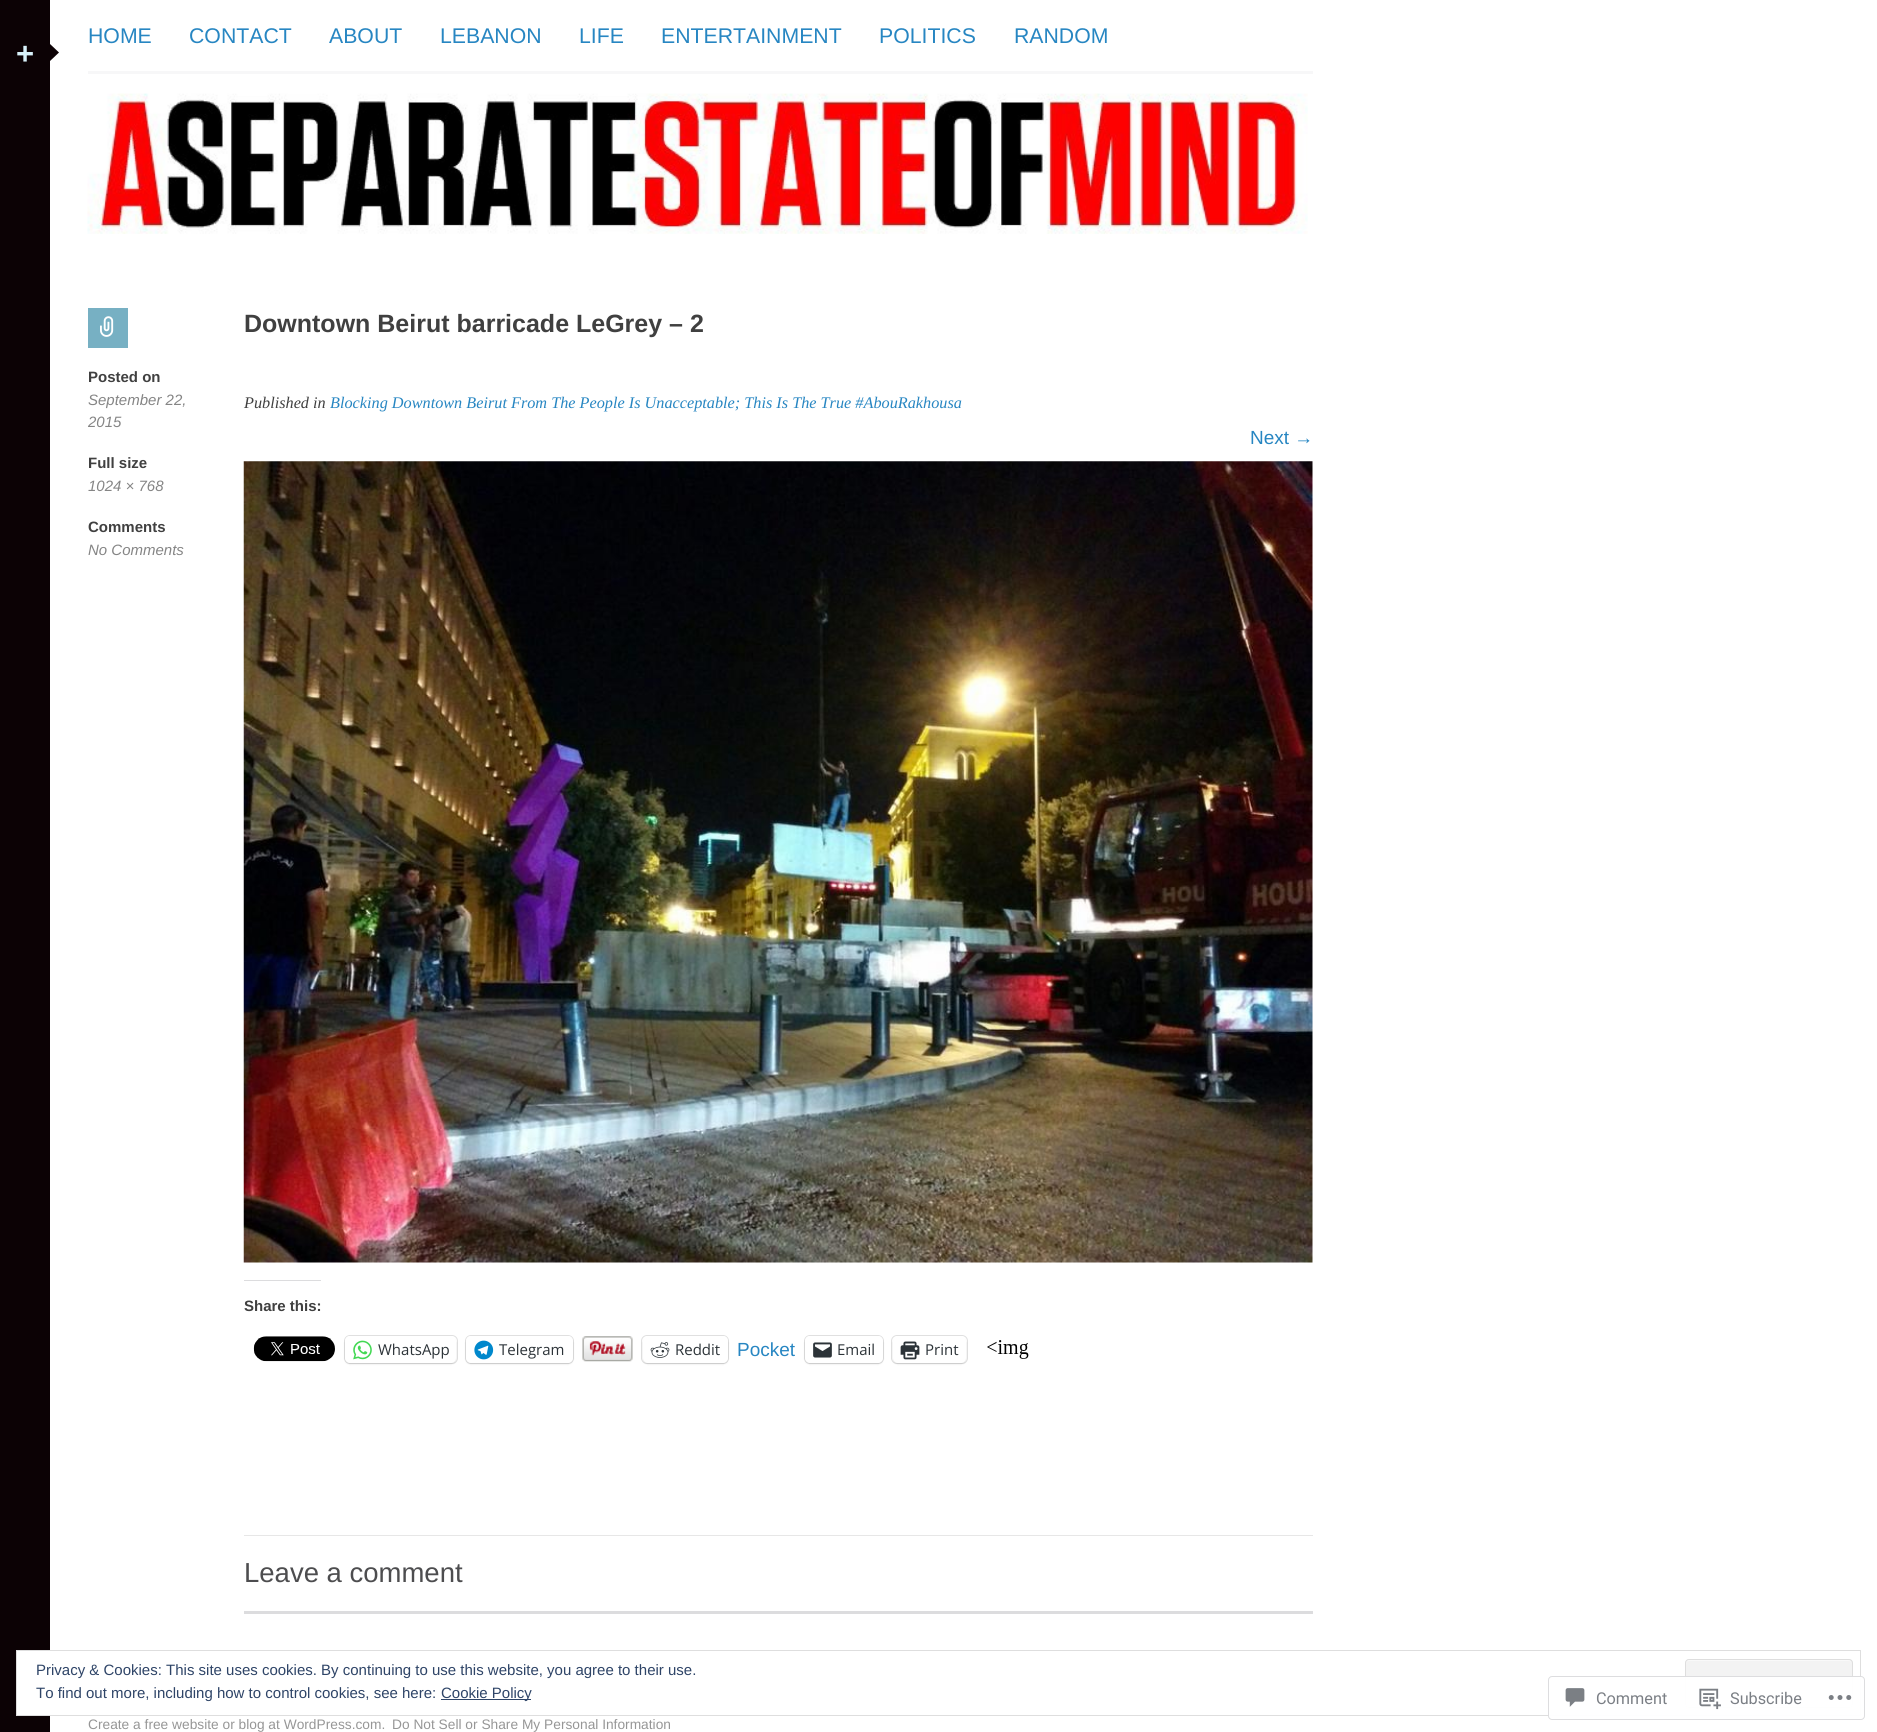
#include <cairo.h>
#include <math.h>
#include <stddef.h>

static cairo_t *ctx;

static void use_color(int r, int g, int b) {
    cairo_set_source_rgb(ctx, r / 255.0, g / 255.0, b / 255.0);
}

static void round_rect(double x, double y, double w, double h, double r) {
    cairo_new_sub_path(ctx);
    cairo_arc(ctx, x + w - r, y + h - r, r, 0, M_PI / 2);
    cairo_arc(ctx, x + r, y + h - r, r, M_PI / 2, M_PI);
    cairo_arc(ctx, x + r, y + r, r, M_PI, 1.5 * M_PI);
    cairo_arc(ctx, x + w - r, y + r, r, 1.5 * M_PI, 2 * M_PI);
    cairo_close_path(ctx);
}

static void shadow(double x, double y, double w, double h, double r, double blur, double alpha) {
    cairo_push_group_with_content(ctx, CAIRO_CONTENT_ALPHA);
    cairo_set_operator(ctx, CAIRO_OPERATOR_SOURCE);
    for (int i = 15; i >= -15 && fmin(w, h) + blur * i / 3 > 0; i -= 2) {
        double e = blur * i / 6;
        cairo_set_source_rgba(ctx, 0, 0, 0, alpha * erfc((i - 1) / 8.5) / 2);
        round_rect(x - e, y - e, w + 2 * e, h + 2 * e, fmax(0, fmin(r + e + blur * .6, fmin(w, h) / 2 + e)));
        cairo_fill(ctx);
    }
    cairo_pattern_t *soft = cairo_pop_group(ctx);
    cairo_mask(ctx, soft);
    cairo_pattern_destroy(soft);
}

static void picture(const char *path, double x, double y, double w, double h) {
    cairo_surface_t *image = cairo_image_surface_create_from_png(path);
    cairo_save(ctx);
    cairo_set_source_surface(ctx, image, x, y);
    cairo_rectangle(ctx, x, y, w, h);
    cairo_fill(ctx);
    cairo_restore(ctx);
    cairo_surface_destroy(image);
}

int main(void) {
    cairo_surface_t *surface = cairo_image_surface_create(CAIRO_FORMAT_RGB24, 1877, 1732);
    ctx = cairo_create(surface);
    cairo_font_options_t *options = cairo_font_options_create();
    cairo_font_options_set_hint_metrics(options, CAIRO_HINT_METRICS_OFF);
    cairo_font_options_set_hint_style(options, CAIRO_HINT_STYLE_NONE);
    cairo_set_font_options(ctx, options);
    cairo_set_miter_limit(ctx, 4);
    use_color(12, 2, 5);
    cairo_paint(ctx);
    cairo_select_font_face(ctx, "Liberation Sans", CAIRO_FONT_SLANT_NORMAL, CAIRO_FONT_WEIGHT_BOLD);
    cairo_set_font_size(ctx, 31);
    use_color(216, 241, 250);
    cairo_move_to(ctx, 16, 64);
    cairo_show_text(ctx, "+");
    use_color(255, 255, 255);
    cairo_rectangle(ctx, 50, 0, 1827, 1732);
    cairo_fill(ctx);
    use_color(12, 2, 5);
    cairo_new_path(ctx);
    cairo_move_to(ctx, 50, 61);
    cairo_line_to(ctx, 50, 44);
    cairo_line_to(ctx, 59, 52.5);
    cairo_close_path(ctx);
    cairo_fill(ctx);
    use_color(247, 247, 248);
    cairo_rectangle(ctx, 88, 71, 1225, 3);
    cairo_fill(ctx);
    cairo_select_font_face(ctx, "Liberation Sans", CAIRO_FONT_SLANT_NORMAL, CAIRO_FONT_WEIGHT_NORMAL);
    cairo_set_font_size(ctx, 21.25);
    use_color(39, 134, 194);
    cairo_move_to(ctx, 88, 43);
    cairo_show_text(ctx, "HOME");
    cairo_move_to(ctx, 189, 43);
    cairo_show_text(ctx, "CONTACT");
    cairo_move_to(ctx, 329, 43);
    cairo_show_text(ctx, "ABOUT");
    cairo_move_to(ctx, 440, 43);
    cairo_show_text(ctx, "LEBANON");
    cairo_move_to(ctx, 579, 43);
    cairo_show_text(ctx, "LIFE");
    cairo_move_to(ctx, 661, 43);
    cairo_show_text(ctx, "ENTERTAINMENT");
    cairo_move_to(ctx, 879, 43);
    cairo_show_text(ctx, "POLITICS");
    cairo_move_to(ctx, 1014, 43);
    cairo_show_text(ctx, "RANDOM");
    picture("img1.png", 87, 93, 1221, 141);
    use_color(119, 176, 195);
    cairo_rectangle(ctx, 88, 308, 40, 40);
    cairo_fill(ctx);
    picture("img2.png", 100, 316, 14, 21);
    cairo_select_font_face(ctx, "Liberation Sans", CAIRO_FONT_SLANT_NORMAL, CAIRO_FONT_WEIGHT_BOLD);
    cairo_set_font_size(ctx, 15);
    use_color(64, 64, 64);
    cairo_move_to(ctx, 88, 382);
    cairo_show_text(ctx, "Posted on");
    cairo_select_font_face(ctx, "Liberation Sans", CAIRO_FONT_SLANT_ITALIC, CAIRO_FONT_WEIGHT_NORMAL);
    use_color(133, 133, 133);
    cairo_move_to(ctx, 88, 405);
    cairo_show_text(ctx, "September 22,");
    cairo_move_to(ctx, 88, 427);
    cairo_show_text(ctx, "2015");
    cairo_select_font_face(ctx, "Liberation Sans", CAIRO_FONT_SLANT_NORMAL, CAIRO_FONT_WEIGHT_BOLD);
    use_color(64, 64, 64);
    cairo_move_to(ctx, 88, 468);
    cairo_show_text(ctx, "Full size");
    cairo_select_font_face(ctx, "Liberation Sans", CAIRO_FONT_SLANT_ITALIC, CAIRO_FONT_WEIGHT_NORMAL);
    use_color(133, 133, 133);
    cairo_move_to(ctx, 88, 491);
    cairo_show_text(ctx, "1024 × 768");
    cairo_select_font_face(ctx, "Liberation Sans", CAIRO_FONT_SLANT_NORMAL, CAIRO_FONT_WEIGHT_BOLD);
    use_color(64, 64, 64);
    cairo_move_to(ctx, 88, 532);
    cairo_show_text(ctx, "Comments");
    cairo_select_font_face(ctx, "Liberation Sans", CAIRO_FONT_SLANT_ITALIC, CAIRO_FONT_WEIGHT_NORMAL);
    use_color(133, 133, 133);
    cairo_move_to(ctx, 88, 555);
    cairo_show_text(ctx, "No Comments");
    cairo_select_font_face(ctx, "Liberation Sans", CAIRO_FONT_SLANT_NORMAL, CAIRO_FONT_WEIGHT_BOLD);
    cairo_set_font_size(ctx, 25);
    use_color(64, 64, 64);
    cairo_move_to(ctx, 244, 332);
    cairo_show_text(ctx, "Downtown Beirut barricade LeGrey – 2");
    cairo_select_font_face(ctx, "Liberation Serif", CAIRO_FONT_SLANT_ITALIC, CAIRO_FONT_WEIGHT_NORMAL);
    cairo_set_font_size(ctx, 16.25);
    cairo_move_to(ctx, 244, 408);
    cairo_show_text(ctx, "Published in");
    use_color(39, 134, 194);
    cairo_move_to(ctx, 330, 408);
    cairo_show_text(ctx, "Blocking Downtown Beirut From The People Is Unacceptable; This Is The True #AbouRakhousa");
    cairo_select_font_face(ctx, "Liberation Sans", CAIRO_FONT_SLANT_NORMAL, CAIRO_FONT_WEIGHT_NORMAL);
    cairo_set_font_size(ctx, 19);
    cairo_move_to(ctx, 1250, 444);
    cairo_show_text(ctx, "Next →");
    picture("img3.png", 243, 461, 1070, 802);
    use_color(220, 220, 222);
    cairo_rectangle(ctx, 244, 1280, 77, 1);
    cairo_fill(ctx);
    cairo_select_font_face(ctx, "Liberation Sans", CAIRO_FONT_SLANT_NORMAL, CAIRO_FONT_WEIGHT_BOLD);
    cairo_set_font_size(ctx, 15);
    use_color(64, 64, 64);
    cairo_move_to(ctx, 244, 1311);
    cairo_show_text(ctx, "Share this:");
    picture("img4.png", 253, 1336, 82, 26);
    round_rect(344.5, 1335.5, 113, 28, 5.5);
    use_color(224, 224, 224);
    cairo_set_line_width(ctx, 1);
    cairo_stroke(ctx);
    use_color(0, 0, 0);
    shadow(345, 1338, 111, 26, 5, 1, 0.12);
    use_color(255, 255, 255);
    round_rect(345, 1336, 111, 27, 5);
    cairo_fill(ctx);
    picture("img5.png", 353, 1340, 19, 20);
    cairo_select_font_face(ctx, "Open Sans", CAIRO_FONT_SLANT_NORMAL, CAIRO_FONT_WEIGHT_NORMAL);
    use_color(44, 51, 56);
    cairo_move_to(ctx, 378, 1355);
    cairo_show_text(ctx, "WhatsApp");
    round_rect(465.5, 1335.5, 108, 28, 5.5);
    use_color(224, 224, 224);
    cairo_stroke(ctx);
    use_color(0, 0, 0);
    shadow(466, 1338, 107, 26, 5, 1, 0.12);
    use_color(255, 255, 255);
    round_rect(466, 1336, 107, 27, 5);
    cairo_fill(ctx);
    picture("img6.png", 474, 1340, 20, 20);
    use_color(44, 51, 56);
    cairo_move_to(ctx, 499, 1355);
    cairo_show_text(ctx, "Telegram");
    picture("img7.png", 582, 1336, 51, 26);
    round_rect(641.5, 1335.5, 87, 28, 5.5);
    use_color(224, 224, 224);
    cairo_stroke(ctx);
    use_color(0, 0, 0);
    shadow(643, 1338, 85, 26, 5, 1, 0.12);
    use_color(255, 255, 255);
    round_rect(643, 1336, 85, 27, 5);
    cairo_fill(ctx);
    picture("img8.png", 650, 1342, 20, 16);
    use_color(44, 51, 56);
    cairo_move_to(ctx, 675, 1355);
    cairo_show_text(ctx, "Reddit");
    cairo_select_font_face(ctx, "Liberation Sans", CAIRO_FONT_SLANT_NORMAL, CAIRO_FONT_WEIGHT_NORMAL);
    cairo_set_font_size(ctx, 19);
    use_color(39, 134, 194);
    cairo_move_to(ctx, 737, 1356);
    cairo_show_text(ctx, "Pocket");
    round_rect(804.5, 1335.5, 79, 28, 5.5);
    use_color(224, 224, 224);
    cairo_stroke(ctx);
    use_color(0, 0, 0);
    shadow(805, 1338, 78, 26, 5, 1, 0.12);
    use_color(255, 255, 255);
    round_rect(805, 1336, 78, 27, 5);
    cairo_fill(ctx);
    picture("img9.png", 813, 1342, 19, 16);
    cairo_select_font_face(ctx, "Open Sans", CAIRO_FONT_SLANT_NORMAL, CAIRO_FONT_WEIGHT_NORMAL);
    cairo_set_font_size(ctx, 15);
    use_color(44, 51, 56);
    cairo_move_to(ctx, 837, 1355);
    cairo_show_text(ctx, "Email");
    round_rect(891.5, 1335.5, 76, 28, 5.5);
    use_color(224, 224, 224);
    cairo_stroke(ctx);
    use_color(0, 0, 0);
    shadow(893, 1338, 73, 26, 5, 1, 0.12);
    use_color(255, 255, 255);
    round_rect(893, 1336, 73, 27, 5);
    cairo_fill(ctx);
    picture("img10.png", 900, 1341, 20, 19);
    use_color(44, 51, 56);
    cairo_move_to(ctx, 925, 1355);
    cairo_show_text(ctx, "Print");
    picture("img11.png", 987, 1340, 42, 19);
    use_color(231, 231, 231);
    cairo_rectangle(ctx, 244, 1535, 1069, 1);
    cairo_fill(ctx);
    cairo_select_font_face(ctx, "Liberation Sans", CAIRO_FONT_SLANT_NORMAL, CAIRO_FONT_WEIGHT_NORMAL);
    cairo_set_font_size(ctx, 27.5);
    use_color(77, 77, 79);
    cairo_move_to(ctx, 244, 1582);
    cairo_show_text(ctx, "Leave a comment");
    use_color(220, 220, 222);
    cairo_rectangle(ctx, 244, 1611, 1069, 3);
    cairo_fill(ctx);
    cairo_set_font_size(ctx, 13.75);
    use_color(150, 150, 150);
    cairo_move_to(ctx, 88, 1729);
    cairo_show_text(ctx, "Create a free website or blog at WordPress.com.");
    cairo_move_to(ctx, 392, 1729);
    cairo_show_text(ctx, "Do Not Sell or Share My Personal Information");
    use_color(255, 255, 255);
    cairo_rectangle(ctx, 17, 1651, 33, 64);
    cairo_fill(ctx);
    cairo_rectangle(ctx, 16.5, 1650.5, 1844, 65);
    use_color(222, 222, 222);
    cairo_stroke(ctx);
    cairo_set_font_size(ctx, 15);
    use_color(46, 68, 103);
    cairo_move_to(ctx, 36, 1675);
    cairo_show_text(ctx, "Privacy & Cookies: This site uses cookies. By continuing to use this website, you agree to their use.");
    use_color(243, 243, 243);
    round_rect(1685, 1659, 168, 49, 4);
    cairo_fill(ctx);
    use_color(249, 249, 249);
    cairo_new_path(ctx);
    cairo_move_to(ctx, 1689, 1661);
    cairo_line_to(ctx, 1849, 1661);
    cairo_curve_to(ctx, 1850, 1661, 1851, 1662, 1851, 1664);
    cairo_curve_to(ctx, 1851, 1662, 1851, 1660, 1848, 1660);
    cairo_line_to(ctx, 1688, 1660);
    cairo_curve_to(ctx, 1686, 1660, 1686, 1662, 1686, 1664);
    cairo_curve_to(ctx, 1686, 1662, 1687, 1661, 1689, 1661);
    cairo_close_path(ctx);
    cairo_fill(ctx);
    round_rect(1685.5, 1659.5, 167, 48, 3.5);
    use_color(222, 222, 222);
    cairo_stroke(ctx);
    use_color(46, 68, 103);
    cairo_move_to(ctx, 36, 1698);
    cairo_show_text(ctx, "To find out more, including how to control cookies, see here:");
    cairo_rectangle(ctx, 441, 1699, 90, 1);
    cairo_fill(ctx);
    cairo_move_to(ctx, 441, 1698);
    cairo_show_text(ctx, "Cookie Policy");
    cairo_set_source_rgba(ctx, 1, 1, 1, 0.98);
    round_rect(1548, 1676, 317, 44, 4);
    cairo_fill(ctx);
    round_rect(1548.5, 1676.5, 316, 43, 3.5);
    cairo_set_source_rgba(ctx, 0.863, 0.863, 0.871, 0.98);
    cairo_stroke(ctx);
    picture("img12.png", 1565, 1688, 20, 19);
    cairo_select_font_face(ctx, "Roboto", CAIRO_FONT_SLANT_NORMAL, CAIRO_FONT_WEIGHT_NORMAL);
    cairo_set_font_size(ctx, 16.25);
    use_color(123, 127, 133);
    cairo_move_to(ctx, 1596, 1704);
    cairo_show_text(ctx, "Comment");
    picture("img13.png", 1699, 1688, 22, 22);
    cairo_move_to(ctx, 1730, 1704);
    cairo_show_text(ctx, "Subscribe");
    picture("img14.png", 1828, 1695, 24, 5);
    cairo_surface_write_to_png(surface, "result.png");
    cairo_font_options_destroy(options);
    cairo_destroy(ctx);
    cairo_surface_destroy(surface);
    return 0;
}
